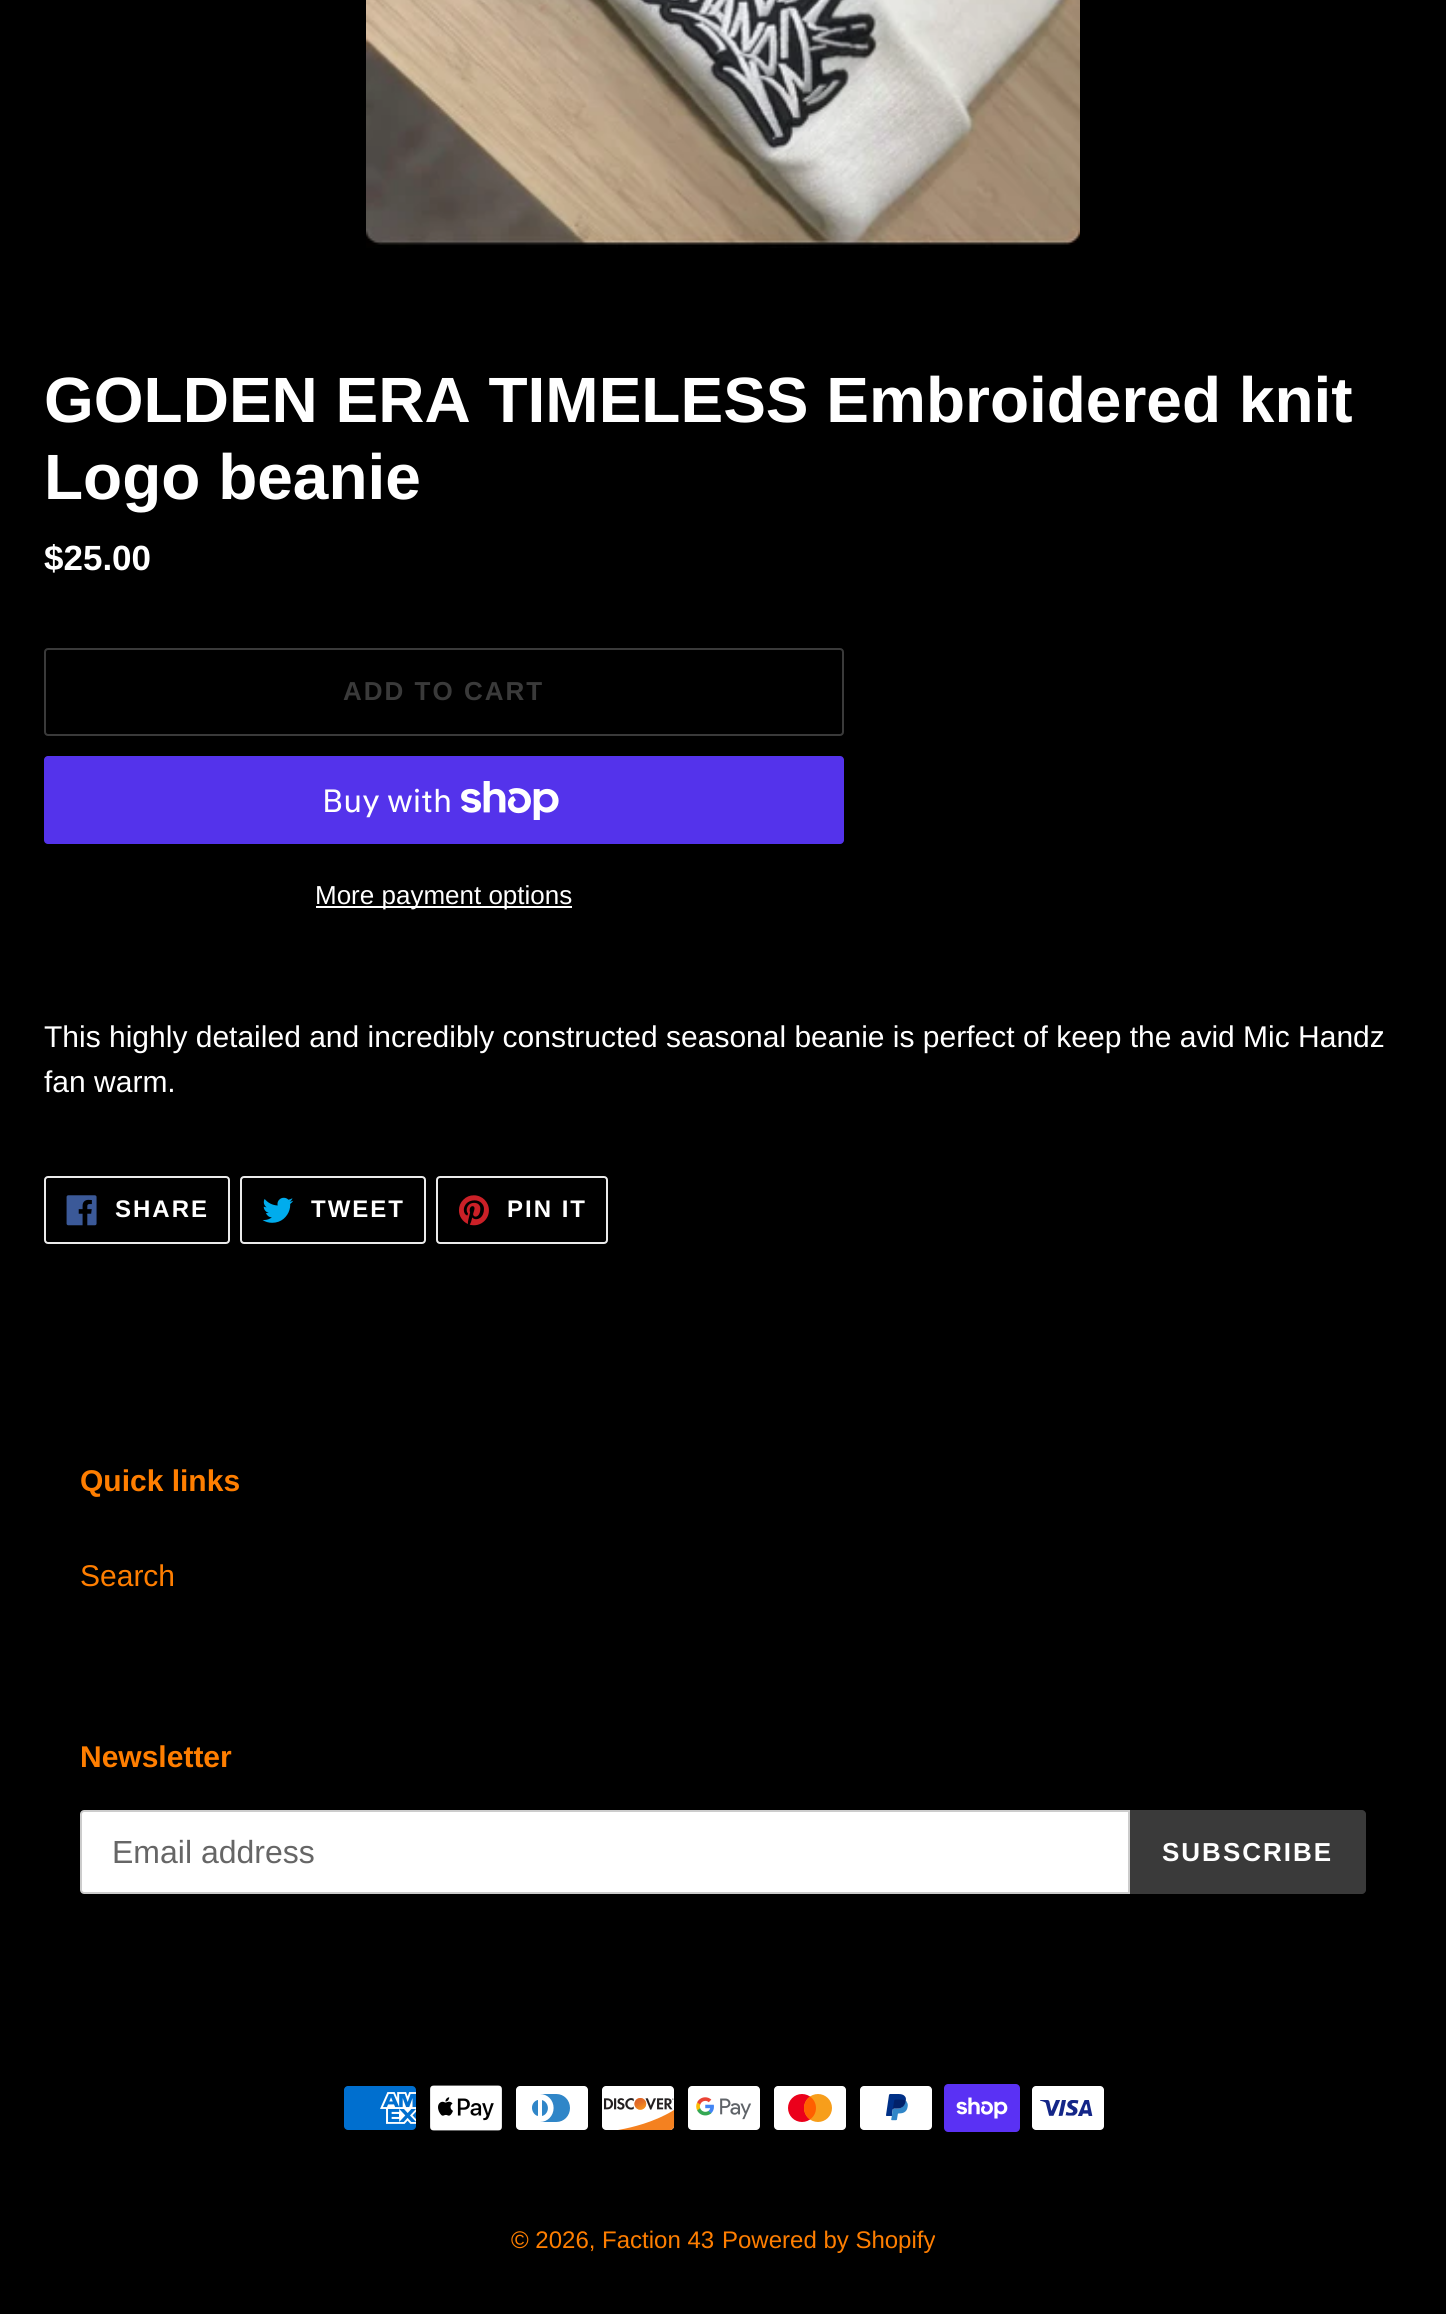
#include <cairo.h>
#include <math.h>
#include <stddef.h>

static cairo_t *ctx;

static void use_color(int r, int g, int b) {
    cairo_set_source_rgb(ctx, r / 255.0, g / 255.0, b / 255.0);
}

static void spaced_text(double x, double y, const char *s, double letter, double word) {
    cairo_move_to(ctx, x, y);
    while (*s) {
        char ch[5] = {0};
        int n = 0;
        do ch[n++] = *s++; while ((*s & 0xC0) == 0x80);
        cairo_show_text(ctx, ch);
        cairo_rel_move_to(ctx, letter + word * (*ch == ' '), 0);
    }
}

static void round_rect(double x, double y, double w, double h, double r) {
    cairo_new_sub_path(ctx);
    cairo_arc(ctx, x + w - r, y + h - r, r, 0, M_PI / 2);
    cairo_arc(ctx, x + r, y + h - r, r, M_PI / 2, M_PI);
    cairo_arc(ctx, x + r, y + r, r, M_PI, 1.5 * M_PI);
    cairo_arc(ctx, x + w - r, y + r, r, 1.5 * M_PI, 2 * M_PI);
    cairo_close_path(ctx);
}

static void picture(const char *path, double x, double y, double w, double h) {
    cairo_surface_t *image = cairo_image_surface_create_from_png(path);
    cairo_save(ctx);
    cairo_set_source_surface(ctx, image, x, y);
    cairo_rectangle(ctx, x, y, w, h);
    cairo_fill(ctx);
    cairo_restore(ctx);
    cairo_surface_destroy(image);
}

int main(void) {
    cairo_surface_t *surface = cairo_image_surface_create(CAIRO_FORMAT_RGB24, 1446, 2314);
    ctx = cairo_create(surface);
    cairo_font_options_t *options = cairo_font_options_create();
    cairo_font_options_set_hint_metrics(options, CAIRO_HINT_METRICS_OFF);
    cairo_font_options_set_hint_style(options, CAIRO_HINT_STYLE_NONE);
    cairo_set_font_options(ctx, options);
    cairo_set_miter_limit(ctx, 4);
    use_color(0, 0, 0);
    cairo_paint(ctx);
    picture("img1.png", 366, 0, 714, 248);
    cairo_select_font_face(ctx, "Liberation Sans", CAIRO_FONT_SLANT_NORMAL, CAIRO_FONT_WEIGHT_BOLD);
    cairo_set_font_size(ctx, 64);
    use_color(255, 255, 255);
    cairo_move_to(ctx, 44, 422);
    cairo_show_text(ctx, "GOLDEN ERA TIMELESS Embroidered knit");
    cairo_move_to(ctx, 44, 499);
    cairo_show_text(ctx, "Logo beanie");
    cairo_set_font_size(ctx, 35);
    cairo_move_to(ctx, 44, 570);
    cairo_show_text(ctx, "$25.00");
    round_rect(45, 649, 798, 86, 3);
    use_color(58, 58, 58);
    cairo_stroke(ctx);
    cairo_set_font_size(ctx, 26);
    spaced_text(343, 700, "ADD TO CART", 2, 0);
    use_color(84, 51, 235);
    round_rect(44, 756, 800, 88, 4);
    cairo_fill(ctx);
    cairo_select_font_face(ctx, "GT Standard", CAIRO_FONT_SLANT_NORMAL, CAIRO_FONT_WEIGHT_NORMAL);
    cairo_set_font_size(ctx, 32);
    use_color(255, 255, 255);
    cairo_move_to(ctx, 322, 812);
    cairo_show_text(ctx, "Buy with");
    picture("img2.png", 461, 781, 98, 39);
    cairo_rectangle(ctx, 316, 906, 256, 2);
    cairo_fill(ctx);
    cairo_select_font_face(ctx, "Liberation Sans", CAIRO_FONT_SLANT_NORMAL, CAIRO_FONT_WEIGHT_NORMAL);
    cairo_set_font_size(ctx, 26);
    cairo_move_to(ctx, 315, 904);
    cairo_show_text(ctx, "More payment options");
    cairo_set_font_size(ctx, 30);
    cairo_move_to(ctx, 44, 1047);
    cairo_show_text(ctx, "This highly detailed and incredibly constructed seasonal beanie is perfect of keep the avid Mic Handz");
    cairo_move_to(ctx, 44, 1092);
    cairo_show_text(ctx, "fan warm.");
    round_rect(45, 1177, 184, 66, 3);
    use_color(235, 235, 235);
    cairo_stroke(ctx);
    picture("img3.png", 66, 1195, 31, 31);
    cairo_select_font_face(ctx, "Liberation Sans", CAIRO_FONT_SLANT_NORMAL, CAIRO_FONT_WEIGHT_BOLD);
    cairo_set_font_size(ctx, 24);
    use_color(255, 255, 255);
    spaced_text(115, 1217, "SHARE", 2, 0);
    round_rect(241, 1177, 184, 66, 3);
    use_color(235, 235, 235);
    cairo_stroke(ctx);
    picture("img4.png", 262, 1197, 32, 26);
    use_color(255, 255, 255);
    spaced_text(311, 1217, "TWEET", 2, 0);
    round_rect(437, 1177, 170, 66, 3);
    use_color(235, 235, 235);
    cairo_stroke(ctx);
    picture("img5.png", 458, 1195, 31, 31);
    use_color(255, 255, 255);
    spaced_text(507, 1217, "PIN IT", 2, 0);
    cairo_set_font_size(ctx, 30);
    use_color(255, 126, 0);
    cairo_move_to(ctx, 80, 1491);
    cairo_show_text(ctx, "Quick links");
    cairo_select_font_face(ctx, "Liberation Sans", CAIRO_FONT_SLANT_NORMAL, CAIRO_FONT_WEIGHT_NORMAL);
    cairo_move_to(ctx, 80, 1586);
    cairo_show_text(ctx, "Search");
    cairo_select_font_face(ctx, "Liberation Sans", CAIRO_FONT_SLANT_NORMAL, CAIRO_FONT_WEIGHT_BOLD);
    cairo_move_to(ctx, 80, 1767);
    cairo_show_text(ctx, "Newsletter");
    use_color(255, 255, 255);
    cairo_new_path(ctx);
    cairo_move_to(ctx, 84, 1811);
    cairo_line_to(ctx, 1129, 1811);
    cairo_line_to(ctx, 1129, 1893);
    cairo_line_to(ctx, 84, 1893);
    cairo_curve_to(ctx, 82.5, 1893, 81, 1891.5, 81, 1890);
    cairo_line_to(ctx, 81, 1814);
    cairo_curve_to(ctx, 81, 1812.5, 82.5, 1811, 84, 1811);
    cairo_close_path(ctx);
    cairo_fill_preserve(ctx);
    use_color(204, 204, 204);
    cairo_stroke(ctx);
    cairo_select_font_face(ctx, "Liberation Sans", CAIRO_FONT_SLANT_NORMAL, CAIRO_FONT_WEIGHT_NORMAL);
    cairo_set_font_size(ctx, 32);
    use_color(102, 102, 102);
    cairo_move_to(ctx, 112, 1863);
    cairo_show_text(ctx, "Email address");
    use_color(58, 58, 58);
    cairo_new_path(ctx);
    cairo_move_to(ctx, 1130, 1810);
    cairo_line_to(ctx, 1362, 1810);
    cairo_curve_to(ctx, 1364, 1810, 1366, 1812, 1366, 1814);
    cairo_line_to(ctx, 1366, 1890);
    cairo_curve_to(ctx, 1366, 1892, 1364, 1894, 1362, 1894);
    cairo_line_to(ctx, 1130, 1894);
    cairo_close_path(ctx);
    cairo_fill(ctx);
    cairo_select_font_face(ctx, "Liberation Sans", CAIRO_FONT_SLANT_NORMAL, CAIRO_FONT_WEIGHT_BOLD);
    cairo_set_font_size(ctx, 26);
    use_color(255, 255, 255);
    spaced_text(1162, 1861, "SUBSCRIBE", 2, 0);
    picture("img6.png", 344, 2086, 72, 44);
    picture("img7.png", 430, 2085, 72, 46);
    picture("img8.png", 516, 2086, 72, 44);
    picture("img9.png", 602, 2086, 73, 44);
    picture("img10.png", 688, 2086, 72, 44);
    picture("img11.png", 774, 2086, 72, 44);
    picture("img12.png", 860, 2086, 72, 44);
    picture("img13.png", 944, 2084, 76, 48);
    picture("img14.png", 1032, 2086, 72, 44);
    cairo_select_font_face(ctx, "Liberation Sans", CAIRO_FONT_SLANT_NORMAL, CAIRO_FONT_WEIGHT_NORMAL);
    cairo_set_font_size(ctx, 24);
    use_color(255, 126, 0);
    cairo_move_to(ctx, 511, 2248);
    cairo_show_text(ctx, "© 2026, Faction 43");
    cairo_move_to(ctx, 722, 2248);
    cairo_show_text(ctx, "Powered by Shopify");
    cairo_surface_write_to_png(surface, "result.png");
    cairo_font_options_destroy(options);
    cairo_destroy(ctx);
    cairo_surface_destroy(surface);
    return 0;
}
